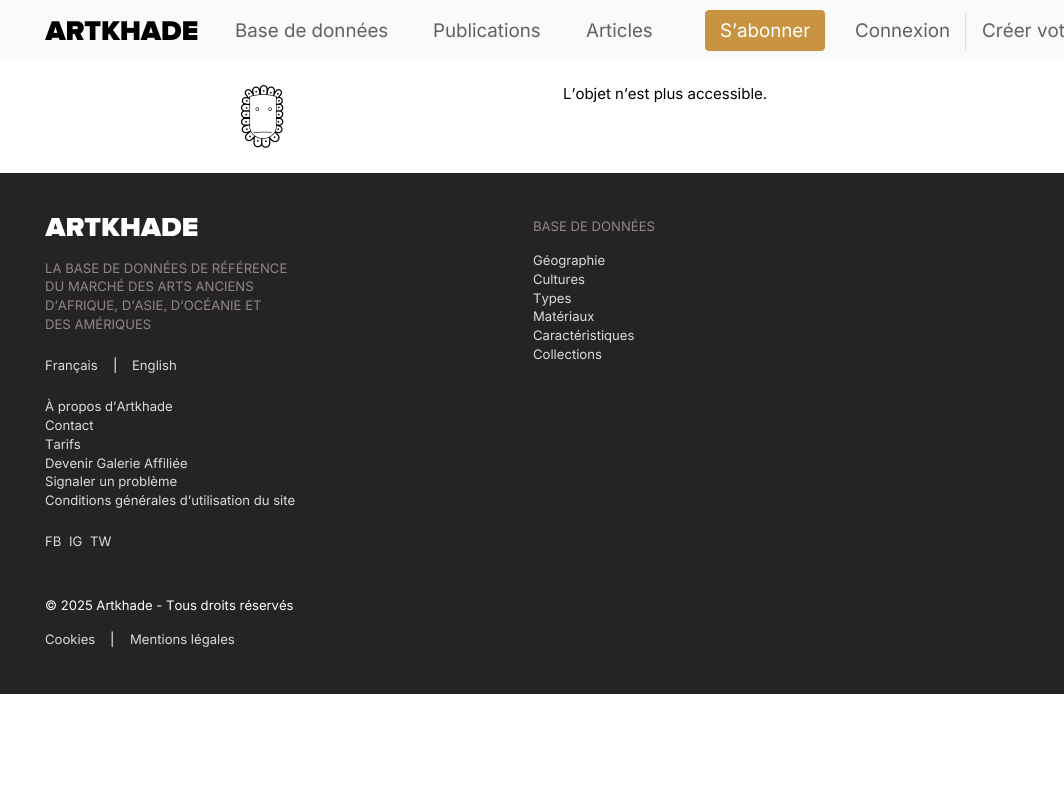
#include <cairo.h>
#include <math.h>
#include <stddef.h>

static cairo_t *ctx;

static void use_color(int r, int g, int b) {
    cairo_set_source_rgb(ctx, r / 255.0, g / 255.0, b / 255.0);
}

static void round_rect(double x, double y, double w, double h, double r) {
    cairo_new_sub_path(ctx);
    cairo_arc(ctx, x + w - r, y + h - r, r, 0, M_PI / 2);
    cairo_arc(ctx, x + r, y + h - r, r, M_PI / 2, M_PI);
    cairo_arc(ctx, x + r, y + r, r, M_PI, 1.5 * M_PI);
    cairo_arc(ctx, x + w - r, y + r, r, 1.5 * M_PI, 2 * M_PI);
    cairo_close_path(ctx);
}

static void picture(const char *path, double x, double y, double w, double h) {
    cairo_surface_t *image = cairo_image_surface_create_from_png(path);
    cairo_save(ctx);
    cairo_set_source_surface(ctx, image, x, y);
    cairo_rectangle(ctx, x, y, w, h);
    cairo_fill(ctx);
    cairo_restore(ctx);
    cairo_surface_destroy(image);
}

int main(void) {
    cairo_surface_t *surface = cairo_image_surface_create(CAIRO_FORMAT_RGB24, 1064, 802);
    ctx = cairo_create(surface);
    cairo_font_options_t *options = cairo_font_options_create();
    cairo_font_options_set_hint_metrics(options, CAIRO_HINT_METRICS_OFF);
    cairo_font_options_set_hint_style(options, CAIRO_HINT_STYLE_NONE);
    cairo_set_font_options(ctx, options);
    cairo_set_miter_limit(ctx, 4);
    use_color(255, 255, 255);
    cairo_paint(ctx);
    use_color(250, 250, 250);
    cairo_rectangle(ctx, 0, 0, 1064, 60);
    cairo_fill(ctx);
    picture("img1.png", 45, 21, 153, 19);
    cairo_select_font_face(ctx, "Inter", CAIRO_FONT_SLANT_NORMAL, CAIRO_FONT_WEIGHT_NORMAL);
    cairo_set_font_size(ctx, 18.75);
    use_color(100, 95, 94);
    cairo_move_to(ctx, 235, 37);
    cairo_show_text(ctx, "Base de données");
    cairo_move_to(ctx, 433, 37);
    cairo_show_text(ctx, "Publications");
    cairo_move_to(ctx, 586, 37);
    cairo_show_text(ctx, "Articles");
    use_color(200, 148, 65);
    round_rect(705, 10, 120, 41, 4);
    cairo_fill(ctx);
    use_color(255, 255, 255);
    cairo_move_to(ctx, 720, 37);
    cairo_show_text(ctx, "S’abonner");
    use_color(100, 95, 94);
    cairo_move_to(ctx, 855, 37);
    cairo_show_text(ctx, "Connexion");
    use_color(220, 219, 218);
    cairo_rectangle(ctx, 965, 13, 1, 37);
    cairo_fill(ctx);
    use_color(100, 95, 94);
    cairo_move_to(ctx, 982, 37);
    cairo_show_text(ctx, "Créer vot");
    picture("img2.png", 241, 85, 43, 63);
    cairo_set_font_size(ctx, 15);
    use_color(0, 0, 0);
    cairo_move_to(ctx, 563, 99);
    cairo_show_text(ctx, "L’objet n’est plus accessible.");
    use_color(37, 35, 35);
    cairo_rectangle(ctx, 0, 173, 1064, 521);
    cairo_fill(ctx);
    picture("img3.png", 45, 218, 153, 18);
    cairo_set_font_size(ctx, 13.1);
    use_color(141, 136, 134);
    cairo_move_to(ctx, 45, 273);
    cairo_show_text(ctx, "LA BASE DE DONNÉES DE RÉFÉRENCE");
    cairo_move_to(ctx, 45, 291);
    cairo_show_text(ctx, "DU MARCHÉ DES ARTS ANCIENS");
    cairo_move_to(ctx, 45, 310);
    cairo_show_text(ctx, "D’AFRIQUE, D’ASIE, D’OCÉANIE ET");
    cairo_move_to(ctx, 45, 329);
    cairo_show_text(ctx, "DES AMÉRIQUES");
    use_color(220, 219, 218);
    cairo_move_to(ctx, 45, 370);
    cairo_show_text(ctx, "Français");
    use_color(255, 255, 255);
    cairo_move_to(ctx, 113, 370);
    cairo_show_text(ctx, "|");
    use_color(220, 219, 218);
    cairo_move_to(ctx, 132, 370);
    cairo_show_text(ctx, "English");
    cairo_move_to(ctx, 45, 411);
    cairo_show_text(ctx, "À propos d’Artkhade");
    cairo_move_to(ctx, 45, 430);
    cairo_show_text(ctx, "Contact");
    cairo_move_to(ctx, 45, 449);
    cairo_show_text(ctx, "Tarifs");
    cairo_move_to(ctx, 45, 468);
    cairo_show_text(ctx, "Devenir Galerie Affiliée");
    cairo_move_to(ctx, 45, 486);
    cairo_show_text(ctx, "Signaler un problème");
    cairo_move_to(ctx, 45, 505);
    cairo_show_text(ctx, "Conditions générales d’utilisation du site");
    cairo_move_to(ctx, 45, 546);
    cairo_show_text(ctx, "FB");
    cairo_move_to(ctx, 69, 546);
    cairo_show_text(ctx, "IG");
    cairo_move_to(ctx, 90, 546);
    cairo_show_text(ctx, "TW");
    use_color(141, 136, 134);
    cairo_move_to(ctx, 533, 231);
    cairo_show_text(ctx, "BASE DE DONNÉES");
    use_color(220, 219, 218);
    cairo_move_to(ctx, 533, 265);
    cairo_show_text(ctx, "Géographie");
    cairo_move_to(ctx, 533, 284);
    cairo_show_text(ctx, "Cultures");
    cairo_move_to(ctx, 533, 303);
    cairo_show_text(ctx, "Types");
    cairo_move_to(ctx, 533, 321);
    cairo_show_text(ctx, "Matériaux");
    cairo_move_to(ctx, 533, 340);
    cairo_show_text(ctx, "Caractéristiques");
    cairo_move_to(ctx, 533, 359);
    cairo_show_text(ctx, "Collections");
    use_color(255, 255, 255);
    cairo_move_to(ctx, 45, 610);
    cairo_show_text(ctx, "© 2025 Artkhade - Tous droits réservés");
    use_color(220, 219, 218);
    cairo_move_to(ctx, 45, 644);
    cairo_show_text(ctx, "Cookies");
    use_color(255, 255, 255);
    cairo_move_to(ctx, 110, 644);
    cairo_show_text(ctx, "|");
    use_color(220, 219, 218);
    cairo_move_to(ctx, 130, 644);
    cairo_show_text(ctx, "Mentions légales");
    cairo_surface_write_to_png(surface, "result.png");
    cairo_font_options_destroy(options);
    cairo_destroy(ctx);
    cairo_surface_destroy(surface);
    return 0;
}
